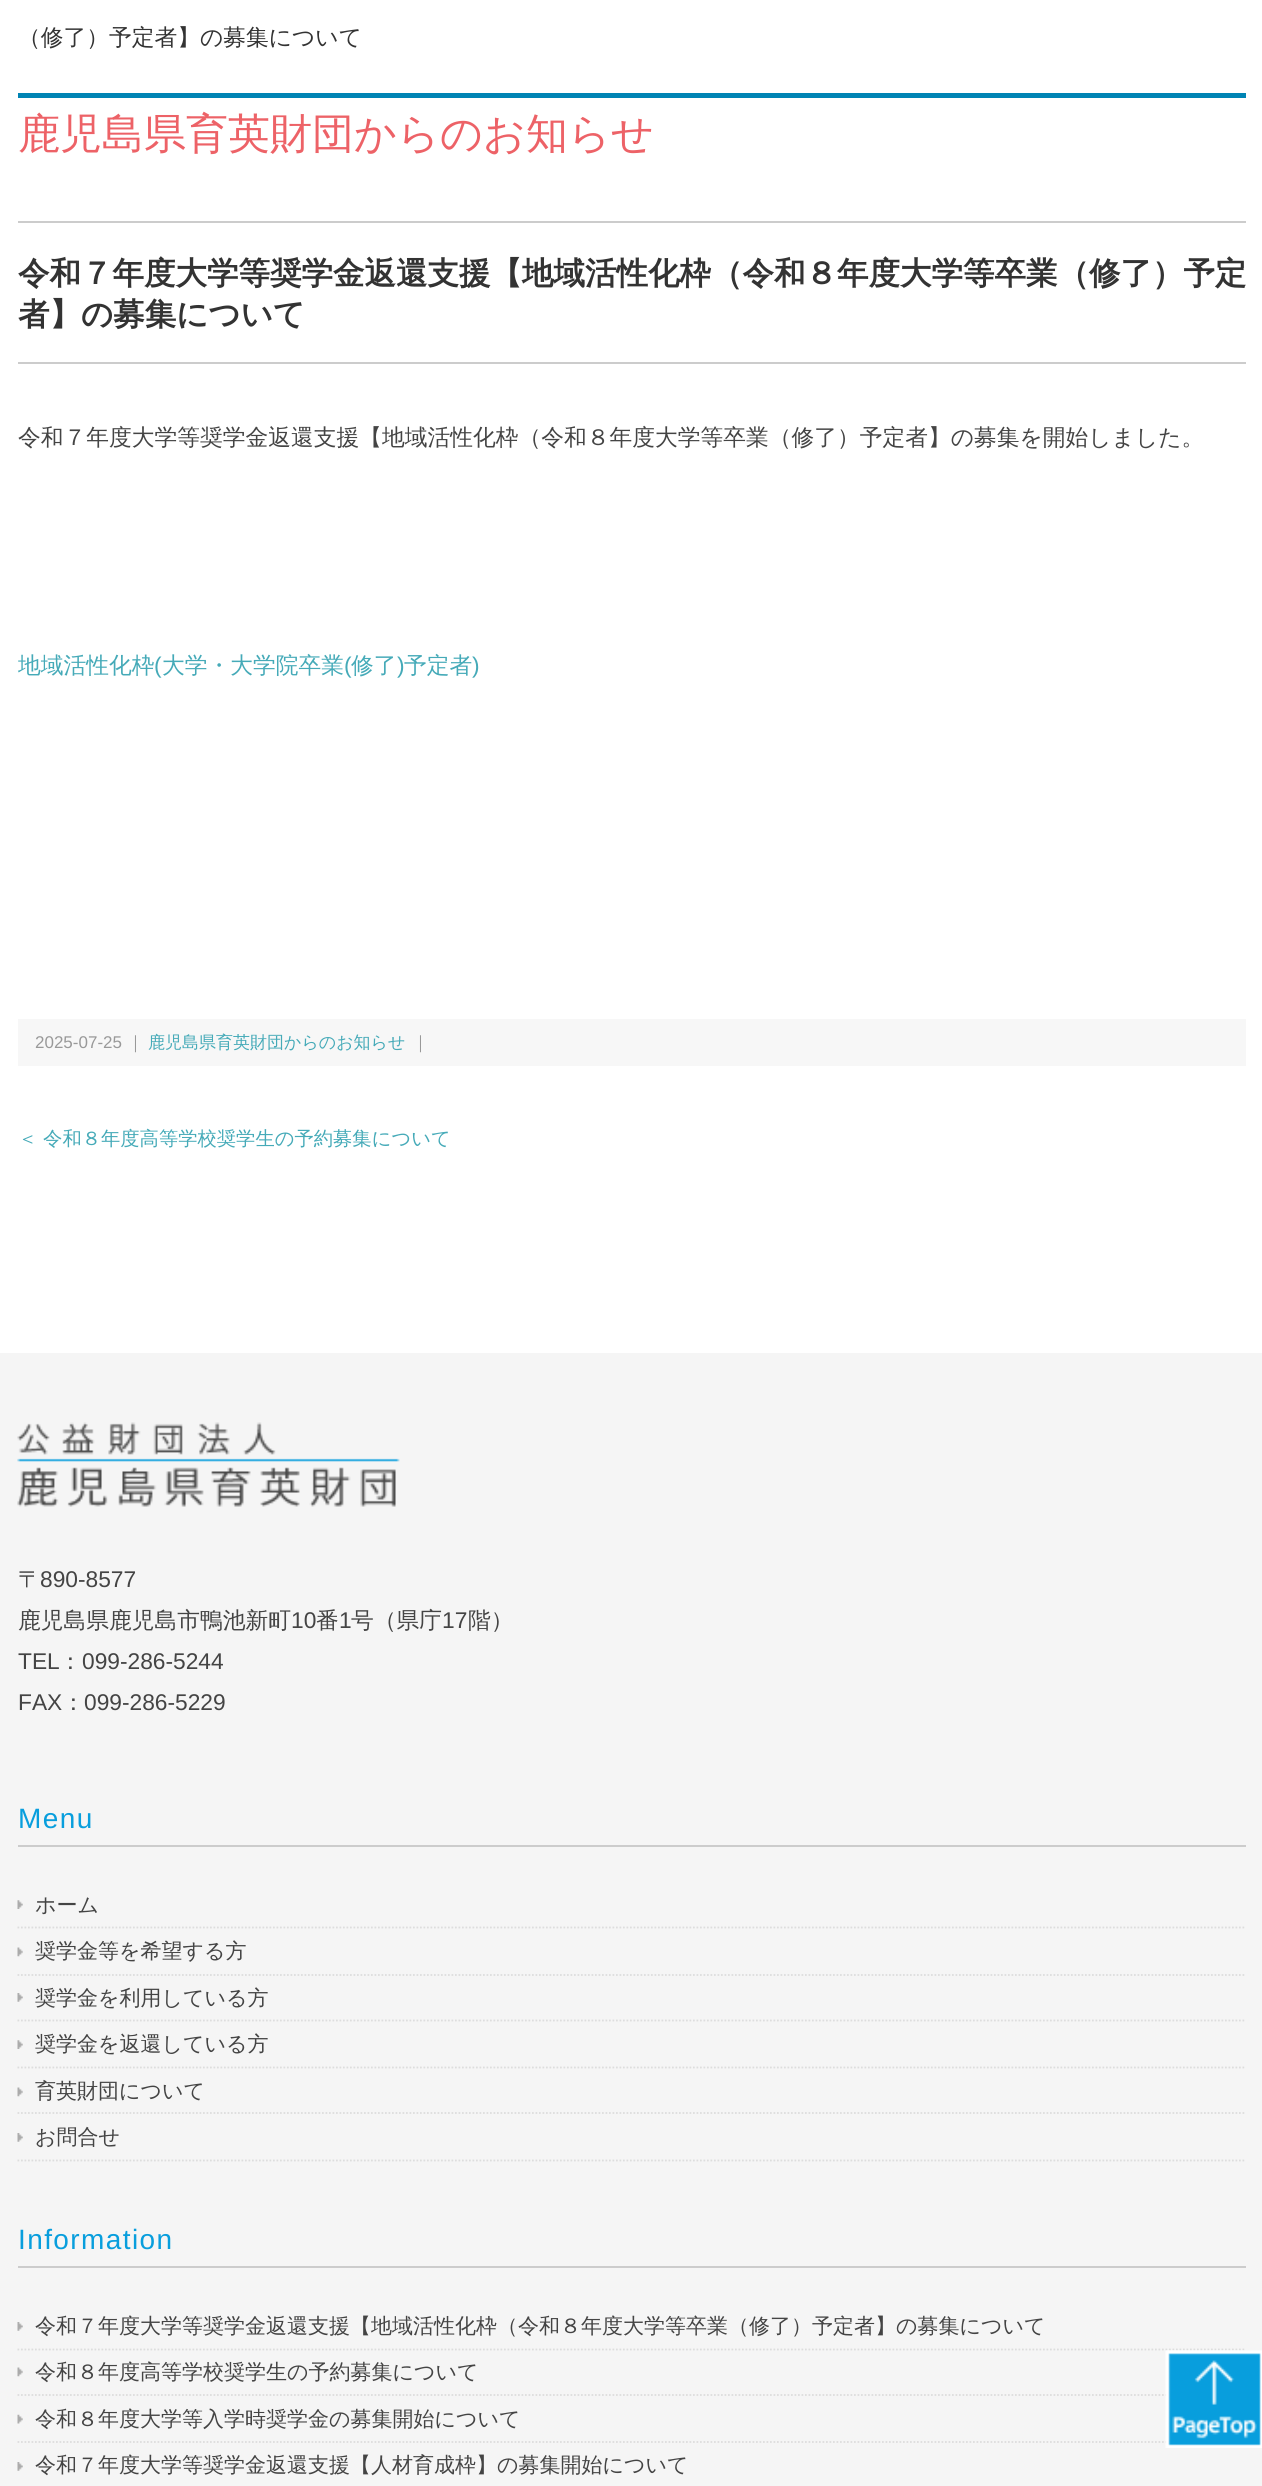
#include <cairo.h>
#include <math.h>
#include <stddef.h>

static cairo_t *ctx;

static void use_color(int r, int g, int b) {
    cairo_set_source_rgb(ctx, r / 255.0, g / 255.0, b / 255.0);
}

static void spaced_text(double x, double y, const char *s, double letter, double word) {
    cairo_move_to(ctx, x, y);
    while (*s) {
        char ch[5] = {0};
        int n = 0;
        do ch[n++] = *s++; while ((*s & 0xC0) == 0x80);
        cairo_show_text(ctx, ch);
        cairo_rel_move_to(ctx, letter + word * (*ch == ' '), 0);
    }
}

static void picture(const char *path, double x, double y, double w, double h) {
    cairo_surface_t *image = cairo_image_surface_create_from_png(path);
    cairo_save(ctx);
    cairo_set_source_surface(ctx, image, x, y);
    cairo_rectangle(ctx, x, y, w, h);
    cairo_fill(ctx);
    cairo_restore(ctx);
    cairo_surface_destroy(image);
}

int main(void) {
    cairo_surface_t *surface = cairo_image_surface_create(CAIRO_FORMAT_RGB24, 1262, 2486);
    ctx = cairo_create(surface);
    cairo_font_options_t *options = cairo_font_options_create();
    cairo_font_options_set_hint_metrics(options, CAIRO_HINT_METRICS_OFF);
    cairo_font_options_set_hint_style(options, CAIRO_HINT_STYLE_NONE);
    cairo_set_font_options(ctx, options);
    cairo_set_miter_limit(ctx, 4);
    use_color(255, 255, 255);
    cairo_paint(ctx);
    cairo_select_font_face(ctx, "WenQuanYi Zen Hei Medium", CAIRO_FONT_SLANT_NORMAL, CAIRO_FONT_WEIGHT_NORMAL);
    cairo_set_font_size(ctx, 22.75);
    use_color(51, 51, 51);
    cairo_move_to(ctx, 18, 45);
    cairo_show_text(ctx, "（修了）予定者】の募集について");
    use_color(0, 132, 180);
    cairo_rectangle(ctx, 18, 93, 1228, 5);
    cairo_fill(ctx);
    cairo_set_font_size(ctx, 42);
    use_color(237, 98, 103);
    cairo_move_to(ctx, 18, 148);
    cairo_show_text(ctx, "鹿児島県育英財団からのお知らせ");
    use_color(204, 204, 204);
    cairo_rectangle(ctx, 18, 221, 1228, 2);
    cairo_fill(ctx);
    cairo_rectangle(ctx, 18, 362, 1228, 2);
    cairo_fill(ctx);
    cairo_select_font_face(ctx, "WenQuanYi Zen Hei", CAIRO_FONT_SLANT_NORMAL, CAIRO_FONT_WEIGHT_BOLD);
    cairo_set_font_size(ctx, 31.5);
    use_color(51, 51, 51);
    cairo_move_to(ctx, 18, 284);
    cairo_show_text(ctx, "令和７年度大学等奨学金返還支援【地域活性化枠（令和８年度大学等卒業（修了）予定");
    cairo_move_to(ctx, 18, 325);
    cairo_show_text(ctx, "者】の募集について");
    cairo_select_font_face(ctx, "WenQuanYi Zen Hei Medium", CAIRO_FONT_SLANT_NORMAL, CAIRO_FONT_WEIGHT_NORMAL);
    cairo_set_font_size(ctx, 22.75);
    use_color(68, 68, 68);
    cairo_move_to(ctx, 18, 445);
    cairo_show_text(ctx, "令和７年度大学等奨学金返還支援【地域活性化枠（令和８年度大学等卒業（修了）予定者】の募集を開始しました。");
    use_color(69, 170, 184);
    cairo_move_to(ctx, 18, 673);
    cairo_show_text(ctx, "地域活性化枠");
    cairo_select_font_face(ctx, "Liberation Sans", CAIRO_FONT_SLANT_NORMAL, CAIRO_FONT_WEIGHT_NORMAL);
    cairo_move_to(ctx, 154, 673);
    cairo_show_text(ctx, "(");
    cairo_select_font_face(ctx, "WenQuanYi Zen Hei Medium", CAIRO_FONT_SLANT_NORMAL, CAIRO_FONT_WEIGHT_NORMAL);
    cairo_move_to(ctx, 162, 673);
    cairo_show_text(ctx, "大学・大学院卒業");
    cairo_select_font_face(ctx, "Liberation Sans", CAIRO_FONT_SLANT_NORMAL, CAIRO_FONT_WEIGHT_NORMAL);
    cairo_move_to(ctx, 344, 673);
    cairo_show_text(ctx, "(");
    cairo_select_font_face(ctx, "WenQuanYi Zen Hei Medium", CAIRO_FONT_SLANT_NORMAL, CAIRO_FONT_WEIGHT_NORMAL);
    cairo_move_to(ctx, 351, 673);
    cairo_show_text(ctx, "修了");
    cairo_select_font_face(ctx, "Liberation Sans", CAIRO_FONT_SLANT_NORMAL, CAIRO_FONT_WEIGHT_NORMAL);
    cairo_move_to(ctx, 397, 673);
    cairo_show_text(ctx, ")");
    cairo_select_font_face(ctx, "WenQuanYi Zen Hei Medium", CAIRO_FONT_SLANT_NORMAL, CAIRO_FONT_WEIGHT_NORMAL);
    cairo_move_to(ctx, 404, 673);
    cairo_show_text(ctx, "予定者");
    cairo_select_font_face(ctx, "Liberation Sans", CAIRO_FONT_SLANT_NORMAL, CAIRO_FONT_WEIGHT_NORMAL);
    cairo_move_to(ctx, 472, 673);
    cairo_show_text(ctx, ")");
    use_color(247, 247, 247);
    cairo_rectangle(ctx, 18, 1019, 1228, 47);
    cairo_fill(ctx);
    cairo_set_font_size(ctx, 17);
    use_color(153, 153, 153);
    cairo_move_to(ctx, 35, 1048);
    cairo_show_text(ctx, "2025-07-25");
    cairo_select_font_face(ctx, "WenQuanYi Zen Hei Medium", CAIRO_FONT_SLANT_NORMAL, CAIRO_FONT_WEIGHT_NORMAL);
    cairo_move_to(ctx, 127, 1048);
    cairo_show_text(ctx, "｜");
    use_color(69, 170, 184);
    cairo_move_to(ctx, 148, 1048);
    cairo_show_text(ctx, "鹿児島県育英財団からのお知らせ");
    use_color(153, 153, 153);
    cairo_move_to(ctx, 412, 1048);
    cairo_show_text(ctx, "｜");
    cairo_set_font_size(ctx, 19.3);
    use_color(69, 170, 184);
    cairo_move_to(ctx, 18, 1145);
    cairo_show_text(ctx, "＜ 令和８年度高等学校奨学生の予約募集について");
    use_color(245, 245, 245);
    cairo_rectangle(ctx, 0, 1353, 1262, 1133);
    cairo_fill(ctx);
    picture("img1.png", 17, 1422, 383, 85);
    cairo_set_font_size(ctx, 22.75);
    use_color(68, 68, 68);
    cairo_move_to(ctx, 18, 1587);
    cairo_show_text(ctx, "〒");
    cairo_select_font_face(ctx, "Liberation Sans", CAIRO_FONT_SLANT_NORMAL, CAIRO_FONT_WEIGHT_NORMAL);
    cairo_move_to(ctx, 40, 1587);
    cairo_show_text(ctx, "890-8577");
    cairo_select_font_face(ctx, "WenQuanYi Zen Hei Medium", CAIRO_FONT_SLANT_NORMAL, CAIRO_FONT_WEIGHT_NORMAL);
    cairo_move_to(ctx, 18, 1628);
    cairo_show_text(ctx, "鹿児島県鹿児島市鴨池新町");
    cairo_select_font_face(ctx, "Liberation Sans", CAIRO_FONT_SLANT_NORMAL, CAIRO_FONT_WEIGHT_NORMAL);
    cairo_move_to(ctx, 291, 1628);
    cairo_show_text(ctx, "10");
    cairo_select_font_face(ctx, "WenQuanYi Zen Hei Medium", CAIRO_FONT_SLANT_NORMAL, CAIRO_FONT_WEIGHT_NORMAL);
    cairo_move_to(ctx, 316, 1628);
    cairo_show_text(ctx, "番");
    cairo_select_font_face(ctx, "Liberation Sans", CAIRO_FONT_SLANT_NORMAL, CAIRO_FONT_WEIGHT_NORMAL);
    cairo_move_to(ctx, 339, 1628);
    cairo_show_text(ctx, "1");
    cairo_select_font_face(ctx, "WenQuanYi Zen Hei Medium", CAIRO_FONT_SLANT_NORMAL, CAIRO_FONT_WEIGHT_NORMAL);
    cairo_move_to(ctx, 351, 1628);
    cairo_show_text(ctx, "号（県庁");
    cairo_select_font_face(ctx, "Liberation Sans", CAIRO_FONT_SLANT_NORMAL, CAIRO_FONT_WEIGHT_NORMAL);
    cairo_move_to(ctx, 442, 1628);
    cairo_show_text(ctx, "17");
    cairo_select_font_face(ctx, "WenQuanYi Zen Hei Medium", CAIRO_FONT_SLANT_NORMAL, CAIRO_FONT_WEIGHT_NORMAL);
    cairo_move_to(ctx, 468, 1628);
    cairo_show_text(ctx, "階）");
    cairo_select_font_face(ctx, "Liberation Sans", CAIRO_FONT_SLANT_NORMAL, CAIRO_FONT_WEIGHT_NORMAL);
    cairo_move_to(ctx, 18, 1669);
    cairo_show_text(ctx, "TEL");
    cairo_select_font_face(ctx, "WenQuanYi Zen Hei Medium", CAIRO_FONT_SLANT_NORMAL, CAIRO_FONT_WEIGHT_NORMAL);
    cairo_move_to(ctx, 59, 1669);
    cairo_show_text(ctx, "：");
    cairo_select_font_face(ctx, "Liberation Sans", CAIRO_FONT_SLANT_NORMAL, CAIRO_FONT_WEIGHT_NORMAL);
    cairo_move_to(ctx, 82, 1669);
    cairo_show_text(ctx, "099-286-5244");
    cairo_move_to(ctx, 18, 1710);
    cairo_show_text(ctx, "FAX");
    cairo_select_font_face(ctx, "WenQuanYi Zen Hei Medium", CAIRO_FONT_SLANT_NORMAL, CAIRO_FONT_WEIGHT_NORMAL);
    cairo_move_to(ctx, 62, 1710);
    cairo_show_text(ctx, "：");
    cairo_select_font_face(ctx, "Liberation Sans", CAIRO_FONT_SLANT_NORMAL, CAIRO_FONT_WEIGHT_NORMAL);
    cairo_move_to(ctx, 84, 1710);
    cairo_show_text(ctx, "099-286-5229");
    use_color(204, 204, 204);
    cairo_rectangle(ctx, 18, 1845, 1228, 2);
    cairo_fill(ctx);
    cairo_set_font_size(ctx, 28);
    use_color(8, 158, 221);
    spaced_text(18, 1828, "Menu", 1.4, 0);
    cairo_new_path(ctx);
    cairo_move_to(ctx, 17.5, 1927.5);
    cairo_line_to(ctx, 1246, 1927.5);
    use_color(221, 221, 221);
    cairo_set_line_width(ctx, 1.8);
    cairo_set_dash(ctx, (double[]){1.75, 1.75}, 2, 0);
    cairo_stroke(ctx);
    picture("img2.png", 17, 1900, 6, 9);
    cairo_select_font_face(ctx, "WenQuanYi Zen Hei Medium", CAIRO_FONT_SLANT_NORMAL, CAIRO_FONT_WEIGHT_NORMAL);
    cairo_set_font_size(ctx, 21);
    use_color(68, 68, 68);
    cairo_move_to(ctx, 35, 1912);
    cairo_show_text(ctx, "ホーム");
    cairo_new_path(ctx);
    cairo_move_to(ctx, 17.5, 1975);
    cairo_line_to(ctx, 1246, 1975);
    use_color(221, 221, 221);
    cairo_stroke(ctx);
    picture("img3.png", 17, 1947, 6, 10);
    use_color(68, 68, 68);
    cairo_move_to(ctx, 35, 1958);
    cairo_show_text(ctx, "奨学金等を希望する方");
    cairo_new_path(ctx);
    cairo_move_to(ctx, 17.5, 2020.5);
    cairo_line_to(ctx, 1246, 2020.5);
    use_color(221, 221, 221);
    cairo_stroke(ctx);
    picture("img4.png", 17, 1993, 6, 9);
    use_color(68, 68, 68);
    cairo_move_to(ctx, 35, 2005);
    cairo_show_text(ctx, "奨学金を利用している方");
    cairo_new_path(ctx);
    cairo_move_to(ctx, 17.5, 2067.5);
    cairo_line_to(ctx, 1246, 2067.5);
    use_color(221, 221, 221);
    cairo_stroke(ctx);
    picture("img2.png", 17, 2040, 6, 9);
    use_color(68, 68, 68);
    cairo_move_to(ctx, 35, 2051);
    cairo_show_text(ctx, "奨学金を返還している方");
    cairo_new_path(ctx);
    cairo_move_to(ctx, 17.5, 2113);
    cairo_line_to(ctx, 1246, 2113);
    use_color(221, 221, 221);
    cairo_stroke(ctx);
    picture("img3.png", 17, 2087, 6, 10);
    use_color(68, 68, 68);
    cairo_move_to(ctx, 35, 2098);
    cairo_show_text(ctx, "育英財団について");
    cairo_new_path(ctx);
    cairo_move_to(ctx, 17.5, 2160.5);
    cairo_line_to(ctx, 1246, 2160.5);
    use_color(221, 221, 221);
    cairo_stroke(ctx);
    picture("img4.png", 17, 2133, 6, 9);
    use_color(68, 68, 68);
    cairo_move_to(ctx, 35, 2144);
    cairo_show_text(ctx, "お問合せ");
    use_color(204, 204, 204);
    cairo_rectangle(ctx, 18, 2266, 1228, 2);
    cairo_fill(ctx);
    cairo_select_font_face(ctx, "Liberation Sans", CAIRO_FONT_SLANT_NORMAL, CAIRO_FONT_WEIGHT_NORMAL);
    cairo_set_font_size(ctx, 28);
    use_color(8, 158, 221);
    spaced_text(18, 2249, "Information", 1.4, 0);
    cairo_new_path(ctx);
    cairo_move_to(ctx, 17.5, 2349.5);
    cairo_line_to(ctx, 1246, 2349.5);
    use_color(221, 221, 221);
    cairo_stroke(ctx);
    picture("img4.png", 17, 2322, 6, 9);
    cairo_select_font_face(ctx, "WenQuanYi Zen Hei Medium", CAIRO_FONT_SLANT_NORMAL, CAIRO_FONT_WEIGHT_NORMAL);
    cairo_set_font_size(ctx, 21);
    use_color(68, 68, 68);
    cairo_move_to(ctx, 35, 2333);
    cairo_show_text(ctx, "令和７年度大学等奨学金返還支援【地域活性化枠（令和８年度大学等卒業（修了）予定者】の募集について");
    cairo_new_path(ctx);
    cairo_move_to(ctx, 17.5, 2395);
    cairo_line_to(ctx, 1246, 2395);
    use_color(221, 221, 221);
    cairo_stroke(ctx);
    picture("img3.png", 17, 2367, 6, 10);
    use_color(68, 68, 68);
    cairo_move_to(ctx, 35, 2379);
    cairo_show_text(ctx, "令和８年度高等学校奨学生の予約募集について");
    cairo_new_path(ctx);
    cairo_move_to(ctx, 17.5, 2442);
    cairo_line_to(ctx, 1246, 2442);
    use_color(221, 221, 221);
    cairo_stroke(ctx);
    picture("img5.png", 17, 2414, 6, 10);
    use_color(68, 68, 68);
    cairo_move_to(ctx, 35, 2426);
    cairo_show_text(ctx, "令和８年度大学等入学時奨学金の募集開始について");
    picture("img4.png", 17, 2462, 6, 9);
    cairo_move_to(ctx, 35, 2472);
    cairo_show_text(ctx, "令和７年度大学等奨学金返還支援【人材育成枠】の募集開始について");
    picture("img6.png", 1165, 2350, 97, 98);
    cairo_surface_write_to_png(surface, "result.png");
    cairo_font_options_destroy(options);
    cairo_destroy(ctx);
    cairo_surface_destroy(surface);
    return 0;
}
